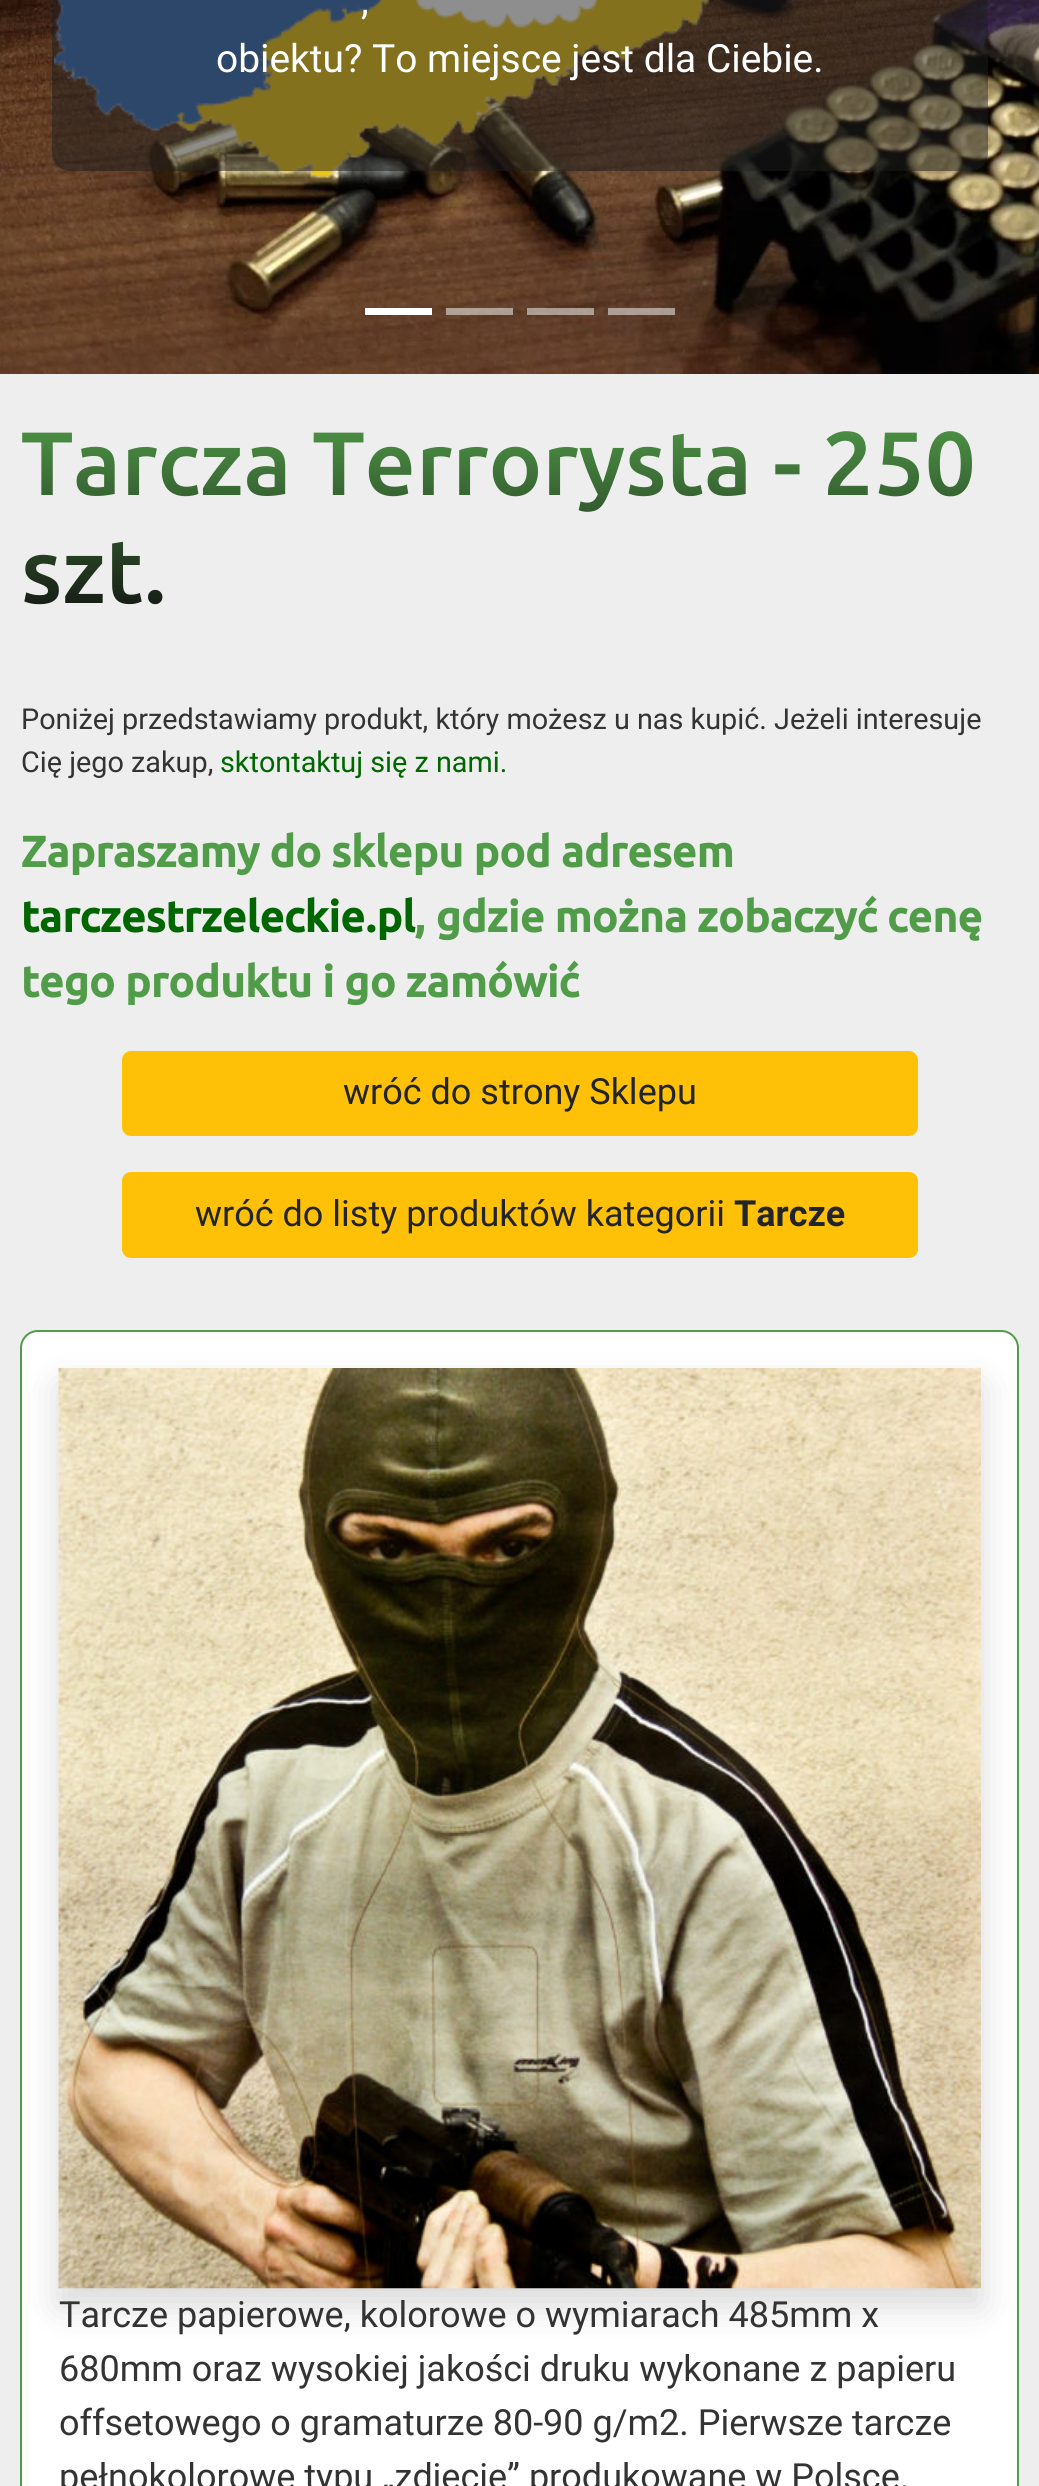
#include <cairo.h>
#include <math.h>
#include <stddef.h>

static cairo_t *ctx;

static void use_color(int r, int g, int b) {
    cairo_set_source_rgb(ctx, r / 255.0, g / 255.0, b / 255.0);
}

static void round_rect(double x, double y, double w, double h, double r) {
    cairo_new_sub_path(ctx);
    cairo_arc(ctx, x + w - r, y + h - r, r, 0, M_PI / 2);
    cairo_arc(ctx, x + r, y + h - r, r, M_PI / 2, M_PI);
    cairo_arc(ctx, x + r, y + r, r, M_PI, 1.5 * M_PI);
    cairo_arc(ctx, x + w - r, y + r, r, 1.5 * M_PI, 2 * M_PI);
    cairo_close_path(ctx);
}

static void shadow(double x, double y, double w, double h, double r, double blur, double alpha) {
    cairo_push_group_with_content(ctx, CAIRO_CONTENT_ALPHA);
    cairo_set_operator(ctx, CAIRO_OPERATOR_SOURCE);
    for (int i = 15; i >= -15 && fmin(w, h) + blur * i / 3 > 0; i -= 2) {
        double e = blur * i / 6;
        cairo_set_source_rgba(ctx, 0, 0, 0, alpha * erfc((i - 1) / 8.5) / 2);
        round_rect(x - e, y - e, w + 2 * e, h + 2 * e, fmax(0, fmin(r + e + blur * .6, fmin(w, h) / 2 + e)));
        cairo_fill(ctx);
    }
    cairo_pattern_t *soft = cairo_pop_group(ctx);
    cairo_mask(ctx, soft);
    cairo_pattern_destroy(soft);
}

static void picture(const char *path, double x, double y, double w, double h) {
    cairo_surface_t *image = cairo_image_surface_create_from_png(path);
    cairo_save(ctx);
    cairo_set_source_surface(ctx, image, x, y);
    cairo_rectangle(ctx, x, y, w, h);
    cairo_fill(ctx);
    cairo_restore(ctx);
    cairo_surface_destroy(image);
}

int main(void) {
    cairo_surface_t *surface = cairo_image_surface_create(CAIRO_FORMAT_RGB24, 1039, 2486);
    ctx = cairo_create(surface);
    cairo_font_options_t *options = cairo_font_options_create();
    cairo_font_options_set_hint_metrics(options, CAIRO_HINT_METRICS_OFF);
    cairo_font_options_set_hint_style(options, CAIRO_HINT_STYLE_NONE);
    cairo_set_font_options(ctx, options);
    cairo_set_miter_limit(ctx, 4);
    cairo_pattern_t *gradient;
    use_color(238, 238, 238);
    cairo_paint(ctx);
    picture("img2.png", 0, 0, 1039, 374);
    picture("img1.png", 54, 0, 667, 179);
    cairo_set_source_rgba(ctx, 0.122, 0.122, 0.122, 0.5);
    round_rect(52, -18, 936, 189, 18);
    cairo_fill(ctx);
    cairo_select_font_face(ctx, "Roboto", CAIRO_FONT_SLANT_NORMAL, CAIRO_FONT_WEIGHT_NORMAL);
    cairo_set_font_size(ctx, 38.9);
    use_color(255, 255, 255);
    cairo_move_to(ctx, 361, 14);
    cairo_show_text(ctx, ",");
    cairo_move_to(ctx, 216, 72);
    cairo_show_text(ctx, "obiektu? To miejsce jest dla Ciebie.");
    cairo_rectangle(ctx, 365, 308, 67, 7);
    cairo_fill(ctx);
    cairo_set_source_rgba(ctx, 1, 1, 1, 0.5);
    cairo_rectangle(ctx, 446, 308, 67, 7);
    cairo_fill(ctx);
    cairo_rectangle(ctx, 527, 308, 67, 7);
    cairo_fill(ctx);
    cairo_rectangle(ctx, 608, 308, 67, 7);
    cairo_fill(ctx);
    cairo_select_font_face(ctx, "Ubuntu Medium", CAIRO_FONT_SLANT_NORMAL, CAIRO_FONT_WEIGHT_NORMAL);
    cairo_set_font_size(ctx, 90);
    gradient = cairo_pattern_create_linear(520, 409, 520, 626);
    cairo_pattern_add_color_stop_rgba(gradient, 0, 0.318, 0.612, 0.286, 1);
    cairo_pattern_add_color_stop_rgba(gradient, 1, 0.067, 0.067, 0.067, 1);
    cairo_set_source(ctx, gradient);
    cairo_pattern_destroy(gradient);
    cairo_move_to(ctx, 21, 495);
    cairo_show_text(ctx, "Tarcza Terrorysta - 250");
    cairo_move_to(ctx, 21, 603);
    cairo_show_text(ctx, "szt.");
    cairo_select_font_face(ctx, "Roboto", CAIRO_FONT_SLANT_NORMAL, CAIRO_FONT_WEIGHT_NORMAL);
    cairo_set_font_size(ctx, 28.8);
    use_color(51, 51, 51);
    cairo_move_to(ctx, 21, 729);
    cairo_show_text(ctx, "Poniżej przedstawiamy produkt, który możesz u nas kupić. Jeżeli interesuje");
    cairo_move_to(ctx, 21, 772);
    cairo_show_text(ctx, "Cię jego zakup,");
    use_color(0, 102, 0);
    cairo_move_to(ctx, 220, 772);
    cairo_show_text(ctx, "sktontaktuj się z nami.");
    cairo_select_font_face(ctx, "Ubuntu", CAIRO_FONT_SLANT_NORMAL, CAIRO_FONT_WEIGHT_BOLD);
    cairo_set_font_size(ctx, 43.25);
    use_color(81, 156, 73);
    cairo_move_to(ctx, 21, 867);
    cairo_show_text(ctx, "Zapraszamy do sklepu pod adresem");
    use_color(0, 102, 0);
    cairo_move_to(ctx, 21, 932);
    cairo_show_text(ctx, "tarczestrzeleckie.pl");
    use_color(81, 156, 73);
    cairo_move_to(ctx, 414, 932);
    cairo_show_text(ctx, ", gdzie można zobaczyć cenę");
    cairo_move_to(ctx, 21, 997);
    cairo_show_text(ctx, "tego produktu i go zamówić");
    use_color(255, 193, 7);
    round_rect(123, 1052, 794, 83, 8);
    cairo_fill_preserve(ctx);
    cairo_stroke(ctx);
    cairo_select_font_face(ctx, "Roboto", CAIRO_FONT_SLANT_NORMAL, CAIRO_FONT_WEIGHT_NORMAL);
    cairo_set_font_size(ctx, 36);
    use_color(33, 37, 41);
    cairo_move_to(ctx, 343, 1104);
    cairo_show_text(ctx, "wróć do strony Sklepu");
    use_color(255, 193, 7);
    round_rect(123, 1173, 794, 84, 8);
    cairo_fill_preserve(ctx);
    cairo_stroke(ctx);
    use_color(33, 37, 41);
    cairo_move_to(ctx, 195, 1226);
    cairo_show_text(ctx, "wróć do listy produktów kategorii");
    cairo_select_font_face(ctx, "Roboto", CAIRO_FONT_SLANT_NORMAL, CAIRO_FONT_WEIGHT_BOLD);
    cairo_move_to(ctx, 734, 1226);
    cairo_show_text(ctx, "Tarcze");
    use_color(255, 255, 255);
    round_rect(21, 1331, 997, 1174, 17);
    cairo_fill_preserve(ctx);
    use_color(81, 156, 73);
    cairo_stroke(ctx);
    use_color(0, 0, 0);
    shadow(59, 1386, 922, 920, 0, 18, 0.15);
    picture("img3.png", 58, 1368, 923, 921);
    cairo_select_font_face(ctx, "Roboto", CAIRO_FONT_SLANT_NORMAL, CAIRO_FONT_WEIGHT_NORMAL);
    use_color(51, 51, 51);
    cairo_move_to(ctx, 59, 2327);
    cairo_show_text(ctx, "Tarcze papierowe, kolorowe o wymiarach 485mm x");
    cairo_move_to(ctx, 59, 2381);
    cairo_show_text(ctx, "680mm oraz wysokiej jakości druku wykonane z papieru");
    cairo_move_to(ctx, 59, 2435);
    cairo_show_text(ctx, "offsetowego o gramaturze 80-90 g/m2. Pierwsze tarcze");
    cairo_move_to(ctx, 59, 2489);
    cairo_show_text(ctx, "pełnokolorowe typu „zdjęcie” produkowane w Polsce.");
    cairo_surface_write_to_png(surface, "result.png");
    cairo_font_options_destroy(options);
    cairo_destroy(ctx);
    cairo_surface_destroy(surface);
    return 0;
}
